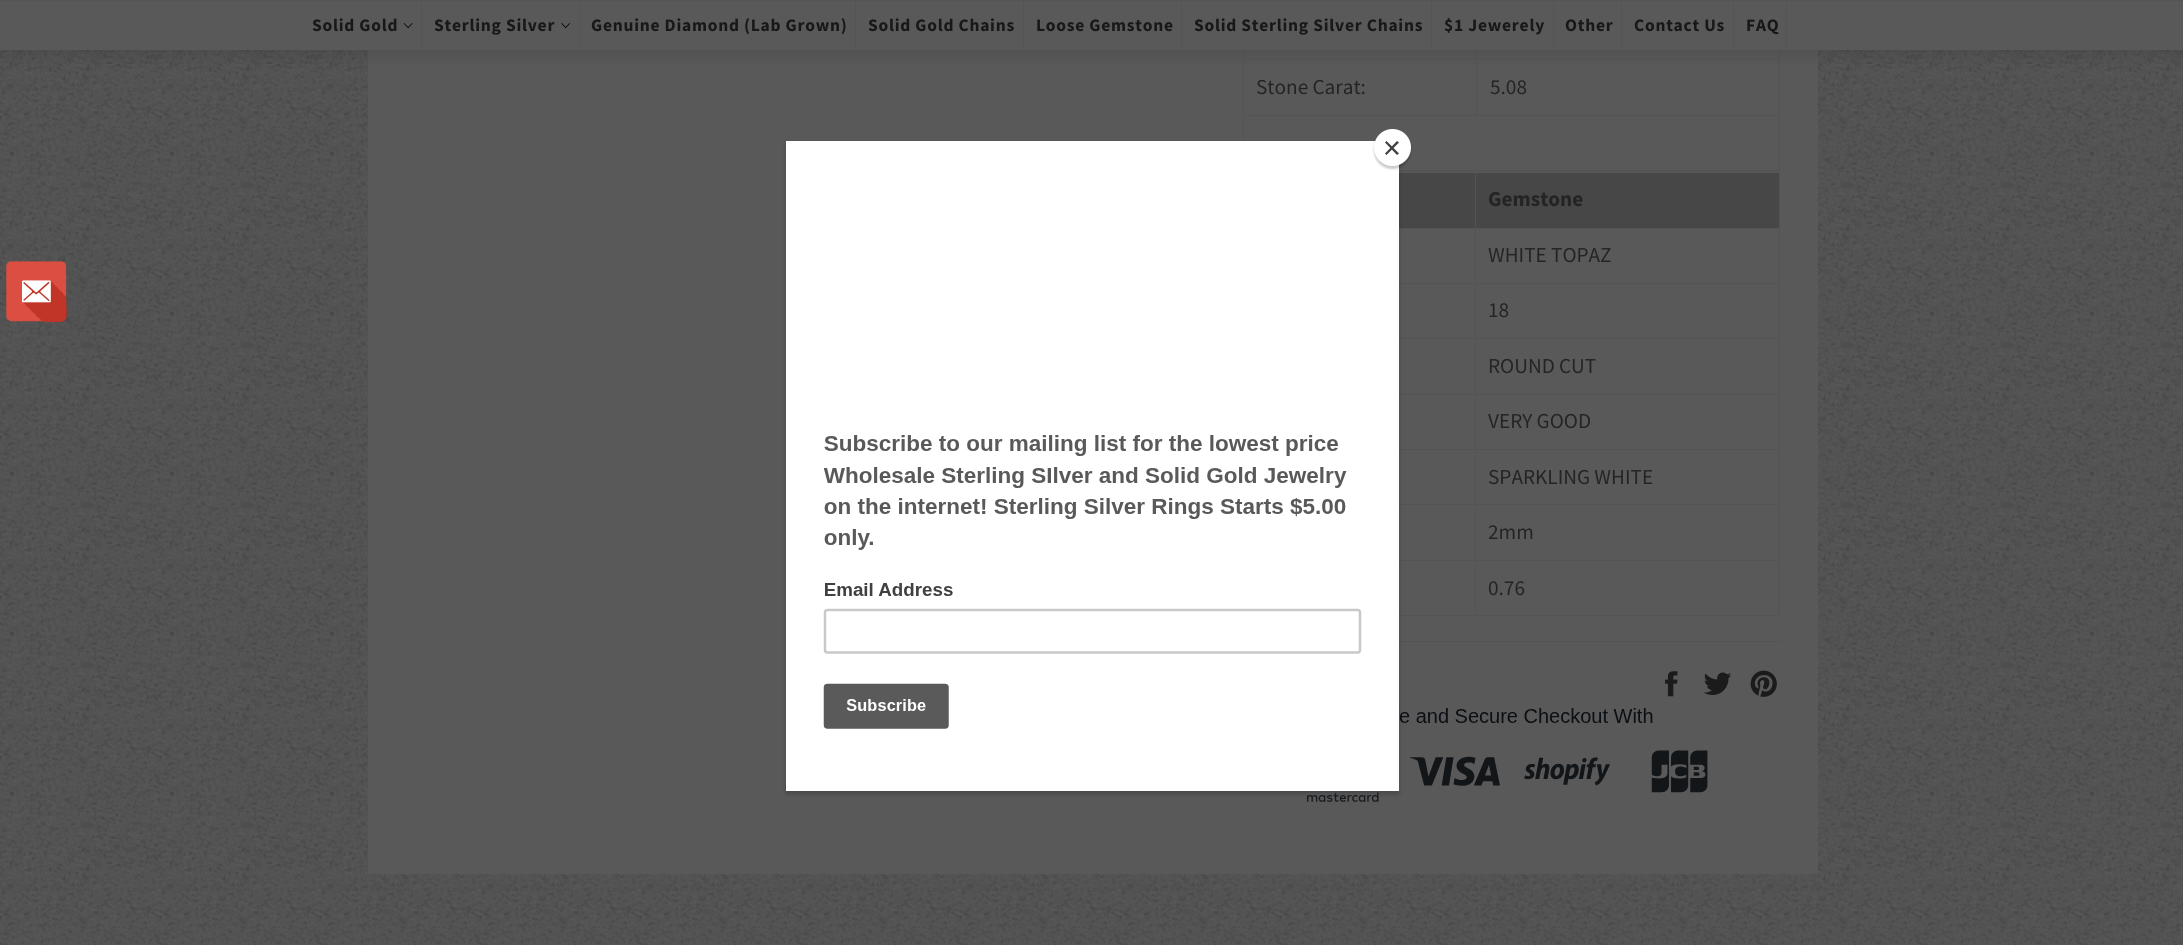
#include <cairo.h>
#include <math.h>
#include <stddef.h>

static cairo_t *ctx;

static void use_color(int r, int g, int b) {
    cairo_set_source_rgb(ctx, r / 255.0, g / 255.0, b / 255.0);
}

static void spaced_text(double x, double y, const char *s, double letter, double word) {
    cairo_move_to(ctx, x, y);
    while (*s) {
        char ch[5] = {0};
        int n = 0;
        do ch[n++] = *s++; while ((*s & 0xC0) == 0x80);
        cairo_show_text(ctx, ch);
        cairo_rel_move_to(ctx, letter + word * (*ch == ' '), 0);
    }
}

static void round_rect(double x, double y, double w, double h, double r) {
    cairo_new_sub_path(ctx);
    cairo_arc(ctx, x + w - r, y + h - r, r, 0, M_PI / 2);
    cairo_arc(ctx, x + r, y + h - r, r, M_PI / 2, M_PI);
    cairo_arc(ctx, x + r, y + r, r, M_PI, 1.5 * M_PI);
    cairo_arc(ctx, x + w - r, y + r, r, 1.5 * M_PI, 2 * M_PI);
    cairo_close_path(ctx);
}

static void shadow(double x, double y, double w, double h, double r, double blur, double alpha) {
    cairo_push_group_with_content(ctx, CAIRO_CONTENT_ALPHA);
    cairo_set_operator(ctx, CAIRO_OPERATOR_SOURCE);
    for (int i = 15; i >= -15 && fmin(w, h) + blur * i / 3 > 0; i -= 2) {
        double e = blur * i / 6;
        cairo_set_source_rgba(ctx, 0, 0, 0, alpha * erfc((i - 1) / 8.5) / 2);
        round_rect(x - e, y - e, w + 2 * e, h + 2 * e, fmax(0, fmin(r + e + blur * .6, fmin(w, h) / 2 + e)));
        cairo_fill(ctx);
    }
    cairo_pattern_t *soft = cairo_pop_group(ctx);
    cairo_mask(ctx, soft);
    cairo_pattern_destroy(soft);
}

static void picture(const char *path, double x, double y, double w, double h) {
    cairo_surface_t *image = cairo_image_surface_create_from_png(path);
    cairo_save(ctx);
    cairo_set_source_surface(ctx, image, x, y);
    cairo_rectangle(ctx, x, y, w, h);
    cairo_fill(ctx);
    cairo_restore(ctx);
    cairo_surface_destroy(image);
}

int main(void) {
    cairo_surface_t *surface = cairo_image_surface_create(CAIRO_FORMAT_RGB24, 2183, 945);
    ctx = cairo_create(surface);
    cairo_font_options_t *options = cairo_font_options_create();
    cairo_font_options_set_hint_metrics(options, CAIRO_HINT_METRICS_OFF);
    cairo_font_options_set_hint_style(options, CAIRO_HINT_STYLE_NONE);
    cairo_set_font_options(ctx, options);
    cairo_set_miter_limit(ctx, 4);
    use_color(255, 255, 255);
    cairo_paint(ctx);
    picture("img5.png", 0, 50, 2183, 895);
    use_color(89, 89, 89);
    cairo_rectangle(ctx, 368, 50, 1450, 824);
    cairo_fill(ctx);
    use_color(84, 84, 84);
    cairo_rectangle(ctx, 1476, 59, 304, 1);
    cairo_fill(ctx);
    cairo_rectangle(ctx, 1243, 115, 537, 1);
    cairo_fill(ctx);
    cairo_rectangle(ctx, 1476, 59, 1, 57);
    cairo_fill(ctx);
    cairo_rectangle(ctx, 1243, 59, 235, 1);
    cairo_fill(ctx);
    cairo_rectangle(ctx, 1476, 50, 1, 10);
    cairo_fill(ctx);
    cairo_rectangle(ctx, 1243, 115, 1, 26);
    cairo_fill(ctx);
    cairo_rectangle(ctx, 1243, 50, 1, 66);
    cairo_fill(ctx);
    cairo_rectangle(ctx, 1779, 115, 1, 56);
    cairo_fill(ctx);
    cairo_rectangle(ctx, 1779, 50, 1, 66);
    cairo_fill(ctx);
    use_color(48, 48, 48);
    shadow(0, 8, 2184, 50, 0, 7, 0.1);
    shadow(0, 8, 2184, 50, 0, 7, 0.1);
    use_color(89, 89, 89);
    cairo_rectangle(ctx, 0, 1, 2183, 49);
    cairo_fill(ctx);
    use_color(85, 85, 85);
    cairo_rectangle(ctx, 0, 0, 2183, 1);
    cairo_fill(ctx);
    cairo_rectangle(ctx, 421, 1, 1, 49);
    cairo_fill(ctx);
    cairo_select_font_face(ctx, "Source Sans Pro", CAIRO_FONT_SLANT_NORMAL, CAIRO_FONT_WEIGHT_BOLD);
    cairo_set_font_size(ctx, 17.5);
    use_color(24, 24, 24);
    spaced_text(312, 31, "Solid Gold", 0.75, 0);
    picture("img1.png", 403, 23, 10, 6);
    use_color(85, 85, 85);
    cairo_rectangle(ctx, 579, 1, 1, 49);
    cairo_fill(ctx);
    use_color(24, 24, 24);
    spaced_text(434, 31, "Sterling Silver", 0.75, 0);
    picture("img2.png", 561, 23, 9, 6);
    use_color(85, 85, 85);
    cairo_rectangle(ctx, 855, 1, 1, 49);
    cairo_fill(ctx);
    use_color(24, 24, 24);
    spaced_text(591, 31, "Genuine Diamond (Lab Grown)", 0.75, 0);
    use_color(85, 85, 85);
    cairo_rectangle(ctx, 1023, 1, 1, 49);
    cairo_fill(ctx);
    use_color(24, 24, 24);
    spaced_text(868, 31, "Solid Gold Chains", 0.75, 0);
    use_color(85, 85, 85);
    cairo_rectangle(ctx, 1181, 1, 1, 49);
    cairo_fill(ctx);
    use_color(24, 24, 24);
    spaced_text(1036, 31, "Loose Gemstone", 0.75, 0);
    use_color(85, 85, 85);
    cairo_rectangle(ctx, 1431, 1, 1, 49);
    cairo_fill(ctx);
    use_color(24, 24, 24);
    spaced_text(1194, 31, "Solid Sterling Silver Chains", 0.75, 0);
    use_color(85, 85, 85);
    cairo_rectangle(ctx, 1553, 1, 1, 49);
    cairo_fill(ctx);
    use_color(24, 24, 24);
    spaced_text(1444, 31, "$1 Jewerely", 0.75, 0);
    use_color(85, 85, 85);
    cairo_rectangle(ctx, 1621, 1, 1, 49);
    cairo_fill(ctx);
    use_color(24, 24, 24);
    spaced_text(1565, 31, "Other", 0.75, 0);
    use_color(85, 85, 85);
    cairo_rectangle(ctx, 1733, 1, 1, 49);
    cairo_fill(ctx);
    use_color(24, 24, 24);
    spaced_text(1634, 31, "Contact Us", 0.75, 0);
    use_color(85, 85, 85);
    cairo_rectangle(ctx, 1786, 1, 1, 49);
    cairo_fill(ctx);
    use_color(24, 24, 24);
    spaced_text(1746, 31, "FAQ", 0.75, 0);
    picture("img3.png", 6, 261, 61, 61);
    use_color(84, 84, 84);
    cairo_rectangle(ctx, 1399, 170, 381, 1);
    cairo_fill(ctx);
    use_color(71, 71, 71);
    cairo_rectangle(ctx, 1399, 173, 76, 55);
    cairo_fill(ctx);
    use_color(84, 84, 84);
    cairo_rectangle(ctx, 1475, 171, 305, 1);
    cairo_fill(ctx);
    cairo_rectangle(ctx, 1475, 228, 305, 1);
    cairo_fill(ctx);
    cairo_rectangle(ctx, 1475, 283, 305, 1);
    cairo_fill(ctx);
    cairo_rectangle(ctx, 1475, 338, 305, 1);
    cairo_fill(ctx);
    cairo_rectangle(ctx, 1475, 394, 305, 1);
    cairo_fill(ctx);
    cairo_rectangle(ctx, 1475, 449, 305, 1);
    cairo_fill(ctx);
    cairo_rectangle(ctx, 1475, 504, 305, 1);
    cairo_fill(ctx);
    cairo_rectangle(ctx, 1475, 560, 305, 1);
    cairo_fill(ctx);
    cairo_rectangle(ctx, 1779, 560, 1, 56);
    cairo_fill(ctx);
    cairo_rectangle(ctx, 1475, 615, 305, 1);
    cairo_fill(ctx);
    cairo_rectangle(ctx, 1475, 560, 1, 56);
    cairo_fill(ctx);
    cairo_rectangle(ctx, 1399, 560, 77, 1);
    cairo_fill(ctx);
    cairo_rectangle(ctx, 1475, 504, 1, 57);
    cairo_fill(ctx);
    cairo_rectangle(ctx, 1399, 504, 77, 1);
    cairo_fill(ctx);
    cairo_rectangle(ctx, 1475, 449, 1, 56);
    cairo_fill(ctx);
    cairo_rectangle(ctx, 1399, 449, 77, 1);
    cairo_fill(ctx);
    cairo_rectangle(ctx, 1475, 394, 1, 56);
    cairo_fill(ctx);
    cairo_rectangle(ctx, 1399, 394, 77, 1);
    cairo_fill(ctx);
    cairo_rectangle(ctx, 1475, 338, 1, 57);
    cairo_fill(ctx);
    cairo_rectangle(ctx, 1399, 338, 77, 1);
    cairo_fill(ctx);
    cairo_rectangle(ctx, 1475, 283, 1, 56);
    cairo_fill(ctx);
    cairo_rectangle(ctx, 1399, 283, 77, 1);
    cairo_fill(ctx);
    cairo_rectangle(ctx, 1475, 228, 1, 56);
    cairo_fill(ctx);
    cairo_rectangle(ctx, 1399, 228, 77, 1);
    cairo_fill(ctx);
    cairo_rectangle(ctx, 1475, 171, 1, 58);
    cairo_fill(ctx);
    cairo_rectangle(ctx, 1399, 171, 77, 1);
    cairo_fill(ctx);
    cairo_rectangle(ctx, 1399, 615, 77, 1);
    cairo_fill(ctx);
    cairo_rectangle(ctx, 1399, 641, 381, 1);
    cairo_fill(ctx);
    picture("img9.png", 1307, 708, 401, 94);
    use_color(0, 0, 0);
    shadow(786, 144, 613, 650, 0, 2.5, 0.2);
    picture("img4.png", 786, 141, 613, 650);
    shadow(1374, 131, 37, 38, 18.5, 1, 0.2);
    use_color(255, 255, 255);
    cairo_arc(ctx, 1392.5, 147.5, 18.5, 0, 2 * M_PI);
    cairo_fill(ctx);
    use_color(65, 65, 65);
    cairo_new_path(ctx);
    cairo_move_to(ctx, 1397, 141);
    cairo_line_to(ctx, 1399, 142.5);
    cairo_line_to(ctx, 1386.5, 155);
    cairo_line_to(ctx, 1385, 153.5);
    cairo_close_path(ctx);
    cairo_fill(ctx);
    cairo_new_path(ctx);
    cairo_move_to(ctx, 1385, 142.5);
    cairo_line_to(ctx, 1386.5, 141);
    cairo_line_to(ctx, 1399, 153.5);
    cairo_line_to(ctx, 1397, 155);
    cairo_close_path(ctx);
    cairo_fill(ctx);
    cairo_select_font_face(ctx, "Source Sans Pro", CAIRO_FONT_SLANT_NORMAL, CAIRO_FONT_WEIGHT_NORMAL);
    cairo_set_font_size(ctx, 21.25);
    use_color(36, 36, 36);
    cairo_move_to(ctx, 1256, 94);
    cairo_show_text(ctx, "Stone Carat:");
    cairo_move_to(ctx, 1490, 94);
    cairo_show_text(ctx, "5.08");
    use_color(71, 71, 71);
    cairo_rectangle(ctx, 1476, 173, 303, 55);
    cairo_fill(ctx);
    use_color(84, 84, 84);
    cairo_rectangle(ctx, 1779, 504, 1, 57);
    cairo_fill(ctx);
    cairo_rectangle(ctx, 1779, 449, 1, 56);
    cairo_fill(ctx);
    cairo_rectangle(ctx, 1779, 394, 1, 56);
    cairo_fill(ctx);
    cairo_rectangle(ctx, 1779, 338, 1, 57);
    cairo_fill(ctx);
    cairo_rectangle(ctx, 1779, 283, 1, 56);
    cairo_fill(ctx);
    cairo_rectangle(ctx, 1779, 228, 1, 56);
    cairo_fill(ctx);
    cairo_rectangle(ctx, 1779, 171, 1, 58);
    cairo_fill(ctx);
    cairo_select_font_face(ctx, "Source Sans Pro", CAIRO_FONT_SLANT_NORMAL, CAIRO_FONT_WEIGHT_BOLD);
    use_color(36, 36, 36);
    cairo_move_to(ctx, 1488, 206);
    cairo_show_text(ctx, "Gemstone");
    cairo_select_font_face(ctx, "Source Sans Pro", CAIRO_FONT_SLANT_NORMAL, CAIRO_FONT_WEIGHT_NORMAL);
    cairo_move_to(ctx, 1488, 262);
    cairo_show_text(ctx, "WHITE TOPAZ");
    cairo_move_to(ctx, 1488, 317);
    cairo_show_text(ctx, "18");
    cairo_move_to(ctx, 1488, 373);
    cairo_show_text(ctx, "ROUND CUT");
    cairo_move_to(ctx, 1488, 428);
    cairo_show_text(ctx, "VERY GOOD");
    cairo_move_to(ctx, 1488, 484);
    cairo_show_text(ctx, "SPARKLING WHITE");
    cairo_move_to(ctx, 1488, 539);
    cairo_show_text(ctx, "2mm");
    cairo_move_to(ctx, 1488, 595);
    cairo_show_text(ctx, "0.76");
    picture("img6.png", 1665, 671, 13, 26);
    picture("img7.png", 1704, 672, 28, 23);
    picture("img8.png", 1750, 670, 27, 27);
    cairo_surface_write_to_png(surface, "result.png");
    cairo_font_options_destroy(options);
    cairo_destroy(ctx);
    cairo_surface_destroy(surface);
    return 0;
}
